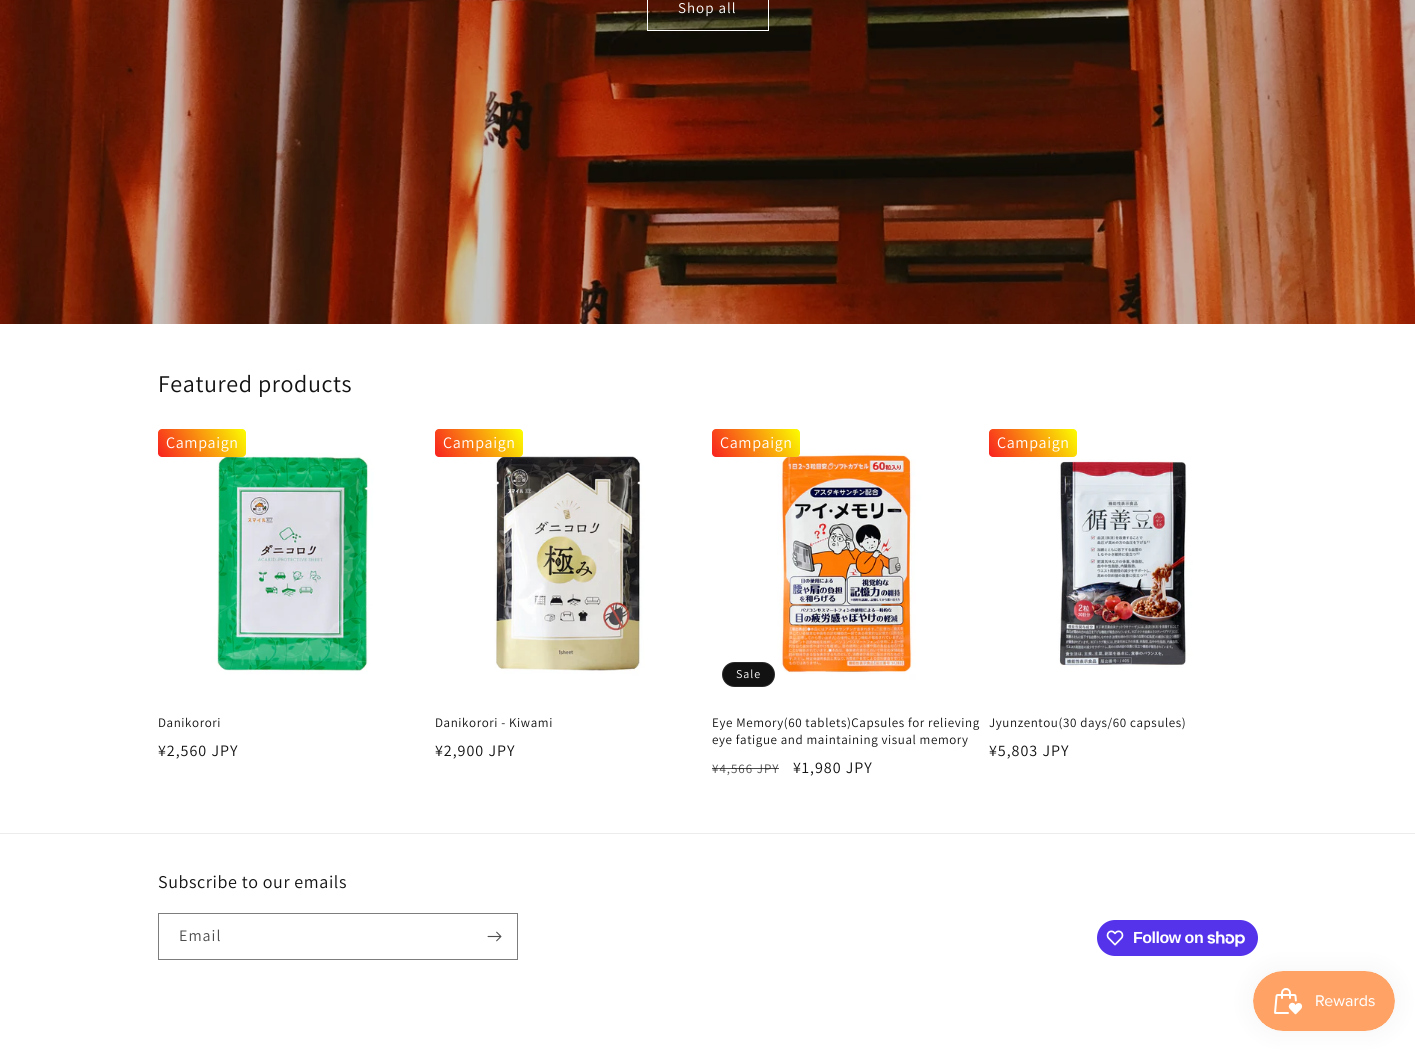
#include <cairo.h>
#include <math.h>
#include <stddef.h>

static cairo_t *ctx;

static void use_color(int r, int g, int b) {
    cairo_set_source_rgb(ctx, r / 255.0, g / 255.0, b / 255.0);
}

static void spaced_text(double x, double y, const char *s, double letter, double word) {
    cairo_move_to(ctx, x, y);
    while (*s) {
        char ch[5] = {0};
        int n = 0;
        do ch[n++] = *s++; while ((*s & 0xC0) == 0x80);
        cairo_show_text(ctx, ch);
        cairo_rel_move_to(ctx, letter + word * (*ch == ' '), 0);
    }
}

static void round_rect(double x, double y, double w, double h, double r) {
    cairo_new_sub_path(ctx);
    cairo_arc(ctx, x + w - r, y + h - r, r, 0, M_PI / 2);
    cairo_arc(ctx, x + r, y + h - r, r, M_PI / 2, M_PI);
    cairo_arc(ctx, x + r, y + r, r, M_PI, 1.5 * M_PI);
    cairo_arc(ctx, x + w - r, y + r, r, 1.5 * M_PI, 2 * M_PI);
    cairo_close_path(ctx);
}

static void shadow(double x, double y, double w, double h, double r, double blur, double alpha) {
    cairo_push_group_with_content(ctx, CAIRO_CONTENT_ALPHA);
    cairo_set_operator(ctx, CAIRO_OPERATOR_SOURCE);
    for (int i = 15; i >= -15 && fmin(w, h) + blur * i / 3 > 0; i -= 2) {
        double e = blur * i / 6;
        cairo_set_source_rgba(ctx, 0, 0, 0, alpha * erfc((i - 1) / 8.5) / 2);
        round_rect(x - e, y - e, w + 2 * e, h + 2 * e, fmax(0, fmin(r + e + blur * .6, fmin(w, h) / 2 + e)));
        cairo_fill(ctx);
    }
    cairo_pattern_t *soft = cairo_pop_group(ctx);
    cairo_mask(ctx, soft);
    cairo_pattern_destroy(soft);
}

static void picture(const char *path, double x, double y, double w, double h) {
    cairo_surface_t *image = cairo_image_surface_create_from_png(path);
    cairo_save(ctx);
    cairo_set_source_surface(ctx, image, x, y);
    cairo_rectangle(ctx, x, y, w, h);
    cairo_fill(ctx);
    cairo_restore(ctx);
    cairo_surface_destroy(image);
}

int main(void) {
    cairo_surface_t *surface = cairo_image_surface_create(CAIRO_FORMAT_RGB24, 1415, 1051);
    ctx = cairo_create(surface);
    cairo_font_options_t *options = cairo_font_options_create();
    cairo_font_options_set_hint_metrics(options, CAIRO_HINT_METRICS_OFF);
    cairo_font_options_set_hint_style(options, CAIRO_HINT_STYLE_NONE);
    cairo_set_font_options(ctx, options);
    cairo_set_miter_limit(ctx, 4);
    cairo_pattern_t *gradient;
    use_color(255, 255, 255);
    cairo_paint(ctx);
    picture("img1.png", 0, 0, 1415, 324);
    cairo_rectangle(ctx, 647.5, -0.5, 121, 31);
    use_color(255, 255, 255);
    cairo_set_line_width(ctx, 1);
    cairo_stroke(ctx);
    cairo_select_font_face(ctx, "Assistant", CAIRO_FONT_SLANT_NORMAL, CAIRO_FONT_WEIGHT_NORMAL);
    cairo_set_font_size(ctx, 15);
    spaced_text(678, 13, "Shop all", 1, 0);
    cairo_set_font_size(ctx, 24);
    use_color(18, 18, 18);
    spaced_text(158, 392, "Featured products", 0.6, 0);
    picture("img2.png", 158, 429, 269, 269);
    gradient = cairo_pattern_create_linear(163, 466, 241, 420);
    cairo_pattern_add_color_stop_rgba(gradient, 0, 0.973, 0.125, 0.125, 1);
    cairo_pattern_add_color_stop_rgba(gradient, 1, 0.984, 1, 0, 1);
    cairo_set_source(ctx, gradient);
    cairo_pattern_destroy(gradient);
    round_rect(158, 429, 88, 28, 4);
    cairo_fill(ctx);
    cairo_set_font_size(ctx, 16);
    use_color(255, 255, 255);
    spaced_text(166, 448, "Campaign", 0.6, 0);
    cairo_set_font_size(ctx, 13);
    use_color(18, 18, 18);
    spaced_text(158, 727, "Danikorori", 0.6, 0);
    cairo_set_font_size(ctx, 16);
    spaced_text(158, 756, "¥2,560 JPY", 1, 0);
    picture("img3.png", 435, 429, 269, 269);
    gradient = cairo_pattern_create_linear(440, 466, 518, 420);
    cairo_pattern_add_color_stop_rgba(gradient, 0, 0.973, 0.125, 0.125, 1);
    cairo_pattern_add_color_stop_rgba(gradient, 1, 0.984, 1, 0, 1);
    cairo_set_source(ctx, gradient);
    cairo_pattern_destroy(gradient);
    round_rect(435, 429, 88, 28, 4);
    cairo_fill(ctx);
    use_color(255, 255, 255);
    spaced_text(443, 448, "Campaign", 0.6, 0);
    cairo_set_font_size(ctx, 13);
    use_color(18, 18, 18);
    spaced_text(435, 727, "Danikorori - Kiwami", 0.6, 0);
    cairo_set_font_size(ctx, 16);
    spaced_text(435, 756, "¥2,900 JPY", 1, 0);
    picture("img4.png", 712, 429, 269, 269);
    gradient = cairo_pattern_create_linear(717, 466, 795, 420);
    cairo_pattern_add_color_stop_rgba(gradient, 0, 0.973, 0.125, 0.125, 1);
    cairo_pattern_add_color_stop_rgba(gradient, 1, 0.984, 1, 0, 1);
    cairo_set_source(ctx, gradient);
    cairo_pattern_destroy(gradient);
    round_rect(712, 429, 88, 28, 4);
    cairo_fill(ctx);
    use_color(255, 255, 255);
    spaced_text(720, 448, "Campaign", 0.6, 0);
    use_color(18, 18, 18);
    round_rect(722, 662, 53, 25, 12.5);
    cairo_fill(ctx);
    round_rect(722.5, 662.5, 52, 24, 12);
    cairo_set_source_rgba(ctx, 1, 1, 1, 0.1);
    cairo_stroke(ctx);
    cairo_set_font_size(ctx, 12);
    use_color(255, 255, 255);
    spaced_text(736, 678, "Sale", 1, 0);
    cairo_set_font_size(ctx, 13);
    use_color(18, 18, 18);
    spaced_text(712, 727, "Eye Memory(60 tablets)Capsules for relieving", 0.6, 0);
    spaced_text(712, 744, "eye fatigue and maintaining visual memory", 0.6, 0);
    use_color(77, 77, 77);
    spaced_text(712, 773, "¥4,566 JPY", 1, 0);
    cairo_set_source_rgba(ctx, 0.071, 0.071, 0.071, 0.75);
    cairo_rectangle(ctx, 712, 768, 67, 1);
    cairo_fill(ctx);
    cairo_set_font_size(ctx, 16);
    use_color(18, 18, 18);
    spaced_text(793, 773, "¥1,980 JPY", 1, 0);
    picture("img5.png", 989, 429, 269, 269);
    gradient = cairo_pattern_create_linear(994, 466, 1072, 420);
    cairo_pattern_add_color_stop_rgba(gradient, 0, 0.973, 0.125, 0.125, 1);
    cairo_pattern_add_color_stop_rgba(gradient, 1, 0.984, 1, 0, 1);
    cairo_set_source(ctx, gradient);
    cairo_pattern_destroy(gradient);
    round_rect(989, 429, 88, 28, 4);
    cairo_fill(ctx);
    use_color(255, 255, 255);
    spaced_text(997, 448, "Campaign", 0.6, 0);
    cairo_set_font_size(ctx, 13);
    use_color(18, 18, 18);
    spaced_text(989, 727, "Jyunzentou(30 days/60 capsules)", 0.6, 0);
    cairo_set_font_size(ctx, 16);
    spaced_text(989, 756, "¥5,803 JPY", 1, 0);
    use_color(236, 236, 236);
    cairo_rectangle(ctx, 0, 833, 1415, 1);
    cairo_fill(ctx);
    cairo_set_font_size(ctx, 18);
    use_color(18, 18, 18);
    spaced_text(158, 888, "Subscribe to our emails", 0.6, 0);
    cairo_rectangle(ctx, 158.5, 913.5, 359, 46);
    use_color(125, 125, 125);
    cairo_stroke(ctx);
    cairo_set_font_size(ctx, 16);
    use_color(77, 77, 77);
    spaced_text(179, 941, "Email", 1, 0);
    picture("img6.png", 487, 931, 15, 11);
    use_color(84, 51, 235);
    round_rect(1097, 920, 161, 36, 18);
    cairo_fill(ctx);
    picture("img7.png", 1106, 930, 18, 16);
    cairo_select_font_face(ctx, "Liberation Sans", CAIRO_FONT_SLANT_NORMAL, CAIRO_FONT_WEIGHT_BOLD);
    use_color(255, 255, 255);
    spaced_text(1133, 943, "Follow on", -0.5, 0);
    picture("img8.png", 1207, 931, 38, 16);
    use_color(0, 0, 0);
    shadow(1253, 971, 142, 60, 30, 12.5, 0.05);
    picture("img9.png", 1253, 971, 142, 60);
    cairo_surface_write_to_png(surface, "result.png");
    cairo_font_options_destroy(options);
    cairo_destroy(ctx);
    cairo_surface_destroy(surface);
    return 0;
}
